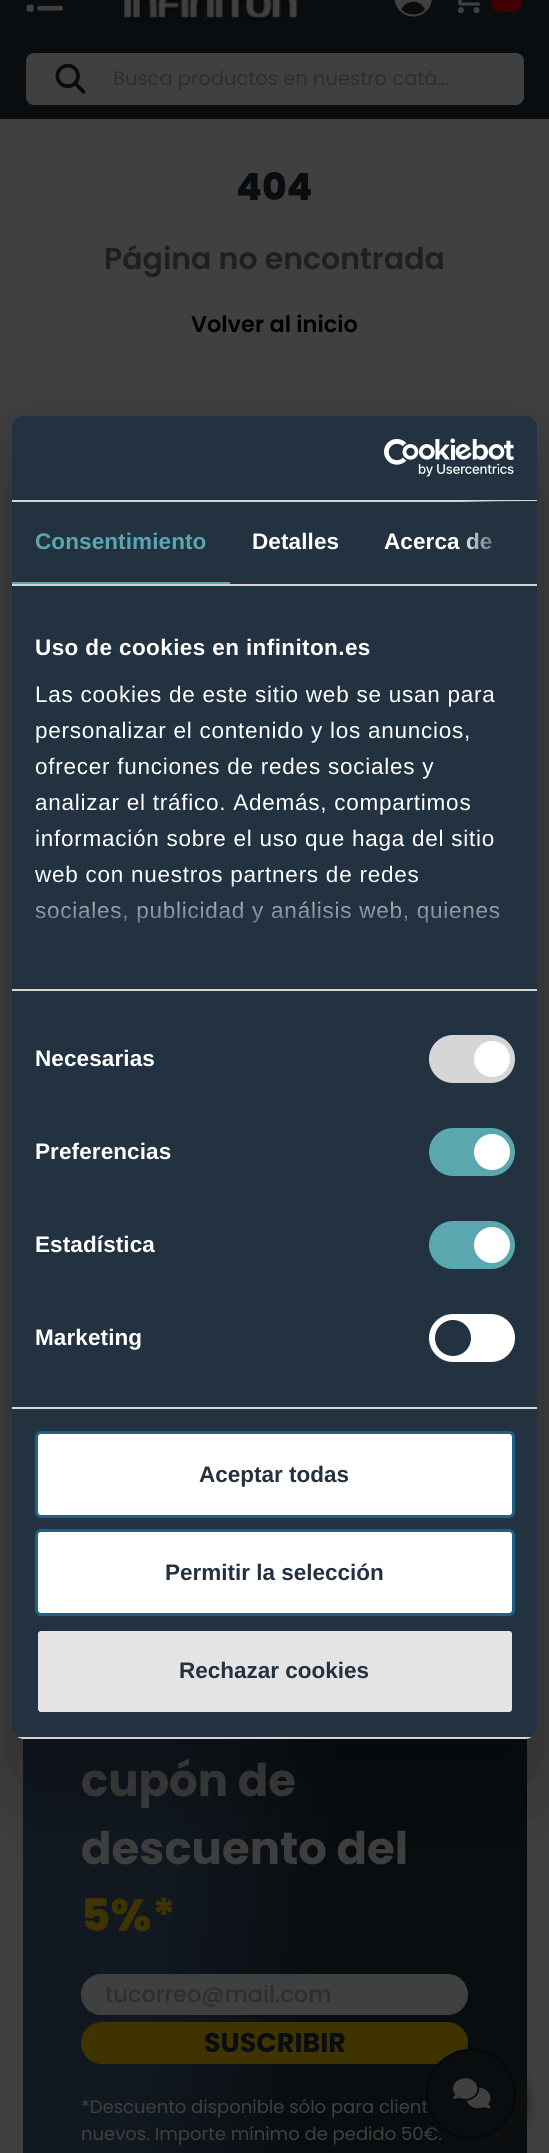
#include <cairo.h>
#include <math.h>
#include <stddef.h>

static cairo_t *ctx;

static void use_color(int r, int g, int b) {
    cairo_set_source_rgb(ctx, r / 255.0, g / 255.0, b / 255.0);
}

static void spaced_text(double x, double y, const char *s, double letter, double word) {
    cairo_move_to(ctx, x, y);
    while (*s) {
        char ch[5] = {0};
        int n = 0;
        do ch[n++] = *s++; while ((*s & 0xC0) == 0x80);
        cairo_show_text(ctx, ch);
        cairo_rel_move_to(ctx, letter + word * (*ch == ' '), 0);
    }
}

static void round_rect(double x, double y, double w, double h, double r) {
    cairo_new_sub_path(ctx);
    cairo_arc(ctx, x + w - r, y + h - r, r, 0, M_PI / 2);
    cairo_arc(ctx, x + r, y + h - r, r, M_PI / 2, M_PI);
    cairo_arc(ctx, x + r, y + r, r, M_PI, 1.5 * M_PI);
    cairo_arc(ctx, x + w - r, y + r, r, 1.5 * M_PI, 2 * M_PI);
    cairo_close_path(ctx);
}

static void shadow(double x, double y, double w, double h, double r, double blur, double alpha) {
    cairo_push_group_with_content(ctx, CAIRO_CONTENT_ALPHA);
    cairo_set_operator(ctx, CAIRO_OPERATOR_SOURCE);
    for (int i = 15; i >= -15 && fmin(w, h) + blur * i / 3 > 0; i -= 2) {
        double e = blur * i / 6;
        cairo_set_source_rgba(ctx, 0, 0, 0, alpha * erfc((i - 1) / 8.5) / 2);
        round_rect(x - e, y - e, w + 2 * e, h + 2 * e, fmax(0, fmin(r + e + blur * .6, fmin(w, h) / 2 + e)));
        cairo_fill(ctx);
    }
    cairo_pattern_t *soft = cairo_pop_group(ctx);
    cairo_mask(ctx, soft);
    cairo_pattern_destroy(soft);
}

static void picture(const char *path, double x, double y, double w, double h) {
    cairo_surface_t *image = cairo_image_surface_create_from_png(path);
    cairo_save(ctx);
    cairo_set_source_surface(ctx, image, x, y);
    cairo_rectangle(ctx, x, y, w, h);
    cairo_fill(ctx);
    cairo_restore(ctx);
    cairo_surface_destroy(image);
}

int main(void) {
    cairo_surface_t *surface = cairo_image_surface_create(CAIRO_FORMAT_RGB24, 549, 2153);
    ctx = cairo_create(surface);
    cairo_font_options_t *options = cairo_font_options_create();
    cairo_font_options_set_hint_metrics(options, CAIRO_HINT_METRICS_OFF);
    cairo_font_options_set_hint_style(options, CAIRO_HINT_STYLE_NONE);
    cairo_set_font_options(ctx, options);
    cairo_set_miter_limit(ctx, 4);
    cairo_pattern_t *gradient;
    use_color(64, 64, 64);
    cairo_paint(ctx);
    use_color(9, 13, 16);
    cairo_rectangle(ctx, 0, 0, 549, 119);
    cairo_fill(ctx);
    picture("img1.png", 26, 4, 37, 8);
    picture("img2.png", 123, 0, 178, 21);
    picture("img3.png", 394, 0, 38, 17);
    picture("img4.png", 457, 0, 23, 14);
    use_color(64, 0, 0);
    round_rect(492, -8, 29, 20, 8);
    cairo_fill(ctx);
    use_color(64, 64, 64);
    round_rect(26, 53, 498, 52, 8);
    cairo_fill(ctx);
    picture("img5.png", 55, 63, 31, 31);
    cairo_select_font_face(ctx, "Poppins", CAIRO_FONT_SLANT_NORMAL, CAIRO_FONT_WEIGHT_NORMAL);
    cairo_set_font_size(ctx, 19.5);
    use_color(46, 46, 46);
    cairo_move_to(ctx, 113, 85);
    cairo_show_text(ctx, "Busca productos en nuestro catá…");
    cairo_select_font_face(ctx, "Poppins ExtraBold", CAIRO_FONT_SLANT_NORMAL, CAIRO_FONT_WEIGHT_NORMAL);
    cairo_set_font_size(ctx, 37.5);
    use_color(9, 13, 16);
    cairo_move_to(ctx, 236, 200);
    cairo_show_text(ctx, "404");
    cairo_select_font_face(ctx, "Poppins SemiBold", CAIRO_FONT_SLANT_NORMAL, CAIRO_FONT_WEIGHT_NORMAL);
    cairo_set_font_size(ctx, 30);
    use_color(31, 31, 31);
    cairo_move_to(ctx, 104, 269);
    cairo_show_text(ctx, "Página no encontrada");
    cairo_set_font_size(ctx, 22.5);
    use_color(0, 0, 0);
    cairo_move_to(ctx, 191, 332);
    cairo_show_text(ctx, "Volver al inicio");
    gradient = cairo_pattern_create_linear(-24, 1919, 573, 1981);
    cairo_pattern_add_color_stop_rgba(gradient, 0.29, 0.067, 0.094, 0.122, 1);
    cairo_pattern_add_color_stop_rgba(gradient, 0.58, 0.031, 0.051, 0.063, 1);
    cairo_set_source(ctx, gradient);
    cairo_pattern_destroy(gradient);
    cairo_rectangle(ctx, 23, 1738, 504, 415);
    cairo_fill(ctx);
    cairo_select_font_face(ctx, "Poppins", CAIRO_FONT_SLANT_NORMAL, CAIRO_FONT_WEIGHT_BOLD);
    cairo_set_font_size(ctx, 45);
    use_color(64, 64, 64);
    cairo_move_to(ctx, 81, 1796);
    cairo_show_text(ctx, "cupón de");
    cairo_move_to(ctx, 81, 1864);
    cairo_show_text(ctx, "descuento del");
    cairo_select_font_face(ctx, "Poppins ExtraBold", CAIRO_FONT_SLANT_NORMAL, CAIRO_FONT_WEIGHT_NORMAL);
    use_color(63, 51, 0);
    cairo_move_to(ctx, 81, 1931);
    cairo_show_text(ctx, "5%*");
    use_color(64, 64, 64);
    round_rect(81, 1974, 387, 41, 20.5);
    cairo_fill(ctx);
    cairo_select_font_face(ctx, "Poppins Medium", CAIRO_FONT_SLANT_NORMAL, CAIRO_FONT_WEIGHT_NORMAL);
    cairo_set_font_size(ctx, 22.5);
    use_color(46, 46, 46);
    cairo_move_to(ctx, 105, 2002);
    cairo_show_text(ctx, "tucorreo@mail.com");
    use_color(63, 51, 0);
    round_rect(81, 2022, 387, 42, 21);
    cairo_fill(ctx);
    cairo_select_font_face(ctx, "Poppins", CAIRO_FONT_SLANT_NORMAL, CAIRO_FONT_WEIGHT_BOLD);
    cairo_set_font_size(ctx, 27);
    use_color(9, 13, 16);
    cairo_move_to(ctx, 204, 2052);
    cairo_show_text(ctx, "SUSCRIBIR");
    cairo_select_font_face(ctx, "Poppins", CAIRO_FONT_SLANT_NORMAL, CAIRO_FONT_WEIGHT_NORMAL);
    cairo_set_font_size(ctx, 18);
    use_color(64, 64, 64);
    cairo_move_to(ctx, 81, 2113);
    cairo_show_text(ctx, "*Descuento disponible sólo para client");
    cairo_move_to(ctx, 81, 2140);
    cairo_show_text(ctx, "nuevos. Importe mínimo de pedido 50€.");
    use_color(0, 0, 0);
    shadow(12, 464, 525, 1323, 12, 51, 0.3);
    use_color(34, 50, 65);
    round_rect(12, 416, 525, 1323, 12);
    cairo_fill(ctx);
    use_color(214, 214, 214);
    cairo_rectangle(ctx, 12, 500, 525, 2);
    cairo_fill(ctx);
    picture("img6.png", 384, 438, 130, 39);
    cairo_rectangle(ctx, 12, 584, 525, 2);
    cairo_fill(ctx);
    use_color(90, 167, 175);
    cairo_rectangle(ctx, 12, 582, 218, 2);
    cairo_fill(ctx);
    cairo_select_font_face(ctx, "Liberation Sans", CAIRO_FONT_SLANT_NORMAL, CAIRO_FONT_WEIGHT_BOLD);
    cairo_set_font_size(ctx, 22.5);
    spaced_text(35, 549, "Consentimiento", 0.1, 0);
    use_color(255, 255, 255);
    spaced_text(252, 549, "Detalles", 0.1, 0);
    spaced_text(384, 549, "Acerca de", 0.1, 0);
    gradient = cairo_pattern_create_linear(537, 543, 459, 543);
    cairo_pattern_add_color_stop_rgba(gradient, 0, 0.133, 0.196, 0.255, 1);
    cairo_pattern_add_color_stop_rgba(gradient, 0.5, 0.133, 0.196, 0.255, 0.8);
    cairo_pattern_add_color_stop_rgba(gradient, 1, 0.133, 0.196, 0.255, 0);
    cairo_set_source(ctx, gradient);
    cairo_pattern_destroy(gradient);
    cairo_rectangle(ctx, 460, 501, 77, 49);
    cairo_fill(ctx);
    use_color(214, 214, 214);
    cairo_rectangle(ctx, 12, 989, 525, 2);
    cairo_fill(ctx);
    use_color(255, 255, 255);
    spaced_text(35, 655, "Uso de cookies en infiniton.es", 0.4, 0);
    cairo_select_font_face(ctx, "Liberation Sans", CAIRO_FONT_SLANT_NORMAL, CAIRO_FONT_WEIGHT_NORMAL);
    spaced_text(35, 702, "Las cookies de este sitio web se usan para", 0.75, 0);
    spaced_text(35, 738, "personalizar el contenido y los anuncios,", 0.75, 0);
    spaced_text(35, 774, "ofrecer funciones de redes sociales y", 0.75, 0);
    spaced_text(35, 810, "analizar el tráfico. Además, compartimos", 0.75, 0);
    spaced_text(35, 846, "información sobre el uso que haga del sitio", 0.75, 0);
    spaced_text(35, 882, "web con nuestros partners de redes", 0.75, 0);
    spaced_text(35, 918, "sociales, publicidad y análisis web, quienes", 0.75, 0);
    gradient = cairo_pattern_create_linear(265, 989, 265, 876);
    cairo_pattern_add_color_stop_rgba(gradient, 0, 0.133, 0.196, 0.255, 1);
    cairo_pattern_add_color_stop_rgba(gradient, 0.5, 0.133, 0.196, 0.255, 0.8);
    cairo_pattern_add_color_stop_rgba(gradient, 1, 0.133, 0.196, 0.255, 0);
    cairo_set_source(ctx, gradient);
    cairo_pattern_destroy(gradient);
    cairo_rectangle(ctx, 35, 878, 464, 45);
    cairo_fill(ctx);
    use_color(214, 214, 214);
    cairo_rectangle(ctx, 12, 1407, 525, 2);
    cairo_fill(ctx);
    cairo_select_font_face(ctx, "Liberation Sans", CAIRO_FONT_SLANT_NORMAL, CAIRO_FONT_WEIGHT_BOLD);
    use_color(255, 255, 255);
    spaced_text(35, 1066, "Necesarias", 0.1, 0);
    use_color(214, 214, 214);
    round_rect(429, 1035, 86, 48, 24);
    cairo_fill(ctx);
    use_color(255, 255, 255);
    cairo_arc(ctx, 492, 1059, 18, 0, 2 * M_PI);
    cairo_fill(ctx);
    spaced_text(35, 1159, "Preferencias", 0.1, 0);
    use_color(90, 167, 175);
    round_rect(429, 1128, 86, 48, 24);
    cairo_fill(ctx);
    use_color(255, 255, 255);
    cairo_arc(ctx, 492, 1152, 18, 0, 2 * M_PI);
    cairo_fill(ctx);
    spaced_text(35, 1252, "Estadística", 0.1, 0);
    use_color(90, 167, 175);
    round_rect(429, 1221, 86, 48, 24);
    cairo_fill(ctx);
    use_color(255, 255, 255);
    cairo_arc(ctx, 492, 1245, 18, 0, 2 * M_PI);
    cairo_fill(ctx);
    spaced_text(35, 1345, "Marketing", 0.1, 0);
    round_rect(429, 1314, 86, 48, 24);
    cairo_fill(ctx);
    use_color(34, 50, 65);
    cairo_arc(ctx, 453, 1338, 18, 0, 2 * M_PI);
    cairo_fill(ctx);
    cairo_save(ctx);
    round_rect(12, 416, 525, 1323, 12);
    cairo_clip(ctx);
    use_color(214, 214, 214);
    cairo_rectangle(ctx, 12, 1737, 525, 2);
    cairo_fill(ctx);
    cairo_restore(ctx);
    use_color(255, 255, 255);
    round_rect(36.5, 1432.5, 477, 84, 4.5);
    cairo_fill_preserve(ctx);
    use_color(31, 98, 133);
    cairo_set_line_width(ctx, 3);
    cairo_stroke(ctx);
    use_color(34, 50, 65);
    cairo_move_to(ctx, 199, 1482);
    cairo_show_text(ctx, "Aceptar todas");
    use_color(255, 255, 255);
    round_rect(36.5, 1530.5, 477, 84, 4.5);
    cairo_fill_preserve(ctx);
    use_color(31, 98, 133);
    cairo_stroke(ctx);
    use_color(34, 50, 65);
    cairo_move_to(ctx, 165, 1580);
    cairo_show_text(ctx, "Permitir la selección");
    use_color(229, 227, 227);
    round_rect(36.5, 1629.5, 477, 84, 4.5);
    cairo_fill_preserve(ctx);
    use_color(34, 50, 65);
    cairo_stroke(ctx);
    cairo_move_to(ctx, 179, 1678);
    cairo_show_text(ctx, "Rechazar cookies");
    use_color(13, 13, 13);
    shadow(434, 2057, 90, 90, 45, 7.5, 1);
    use_color(9, 13, 16);
    cairo_arc(ctx, 471, 2094, 44, 0, 2 * M_PI);
    cairo_fill_preserve(ctx);
    use_color(5, 8, 10);
    cairo_set_line_width(ctx, 2);
    cairo_stroke(ctx);
    picture("img7.png", 453, 2078, 38, 31);
    cairo_surface_write_to_png(surface, "result.png");
    cairo_font_options_destroy(options);
    cairo_destroy(ctx);
    cairo_surface_destroy(surface);
    return 0;
}
